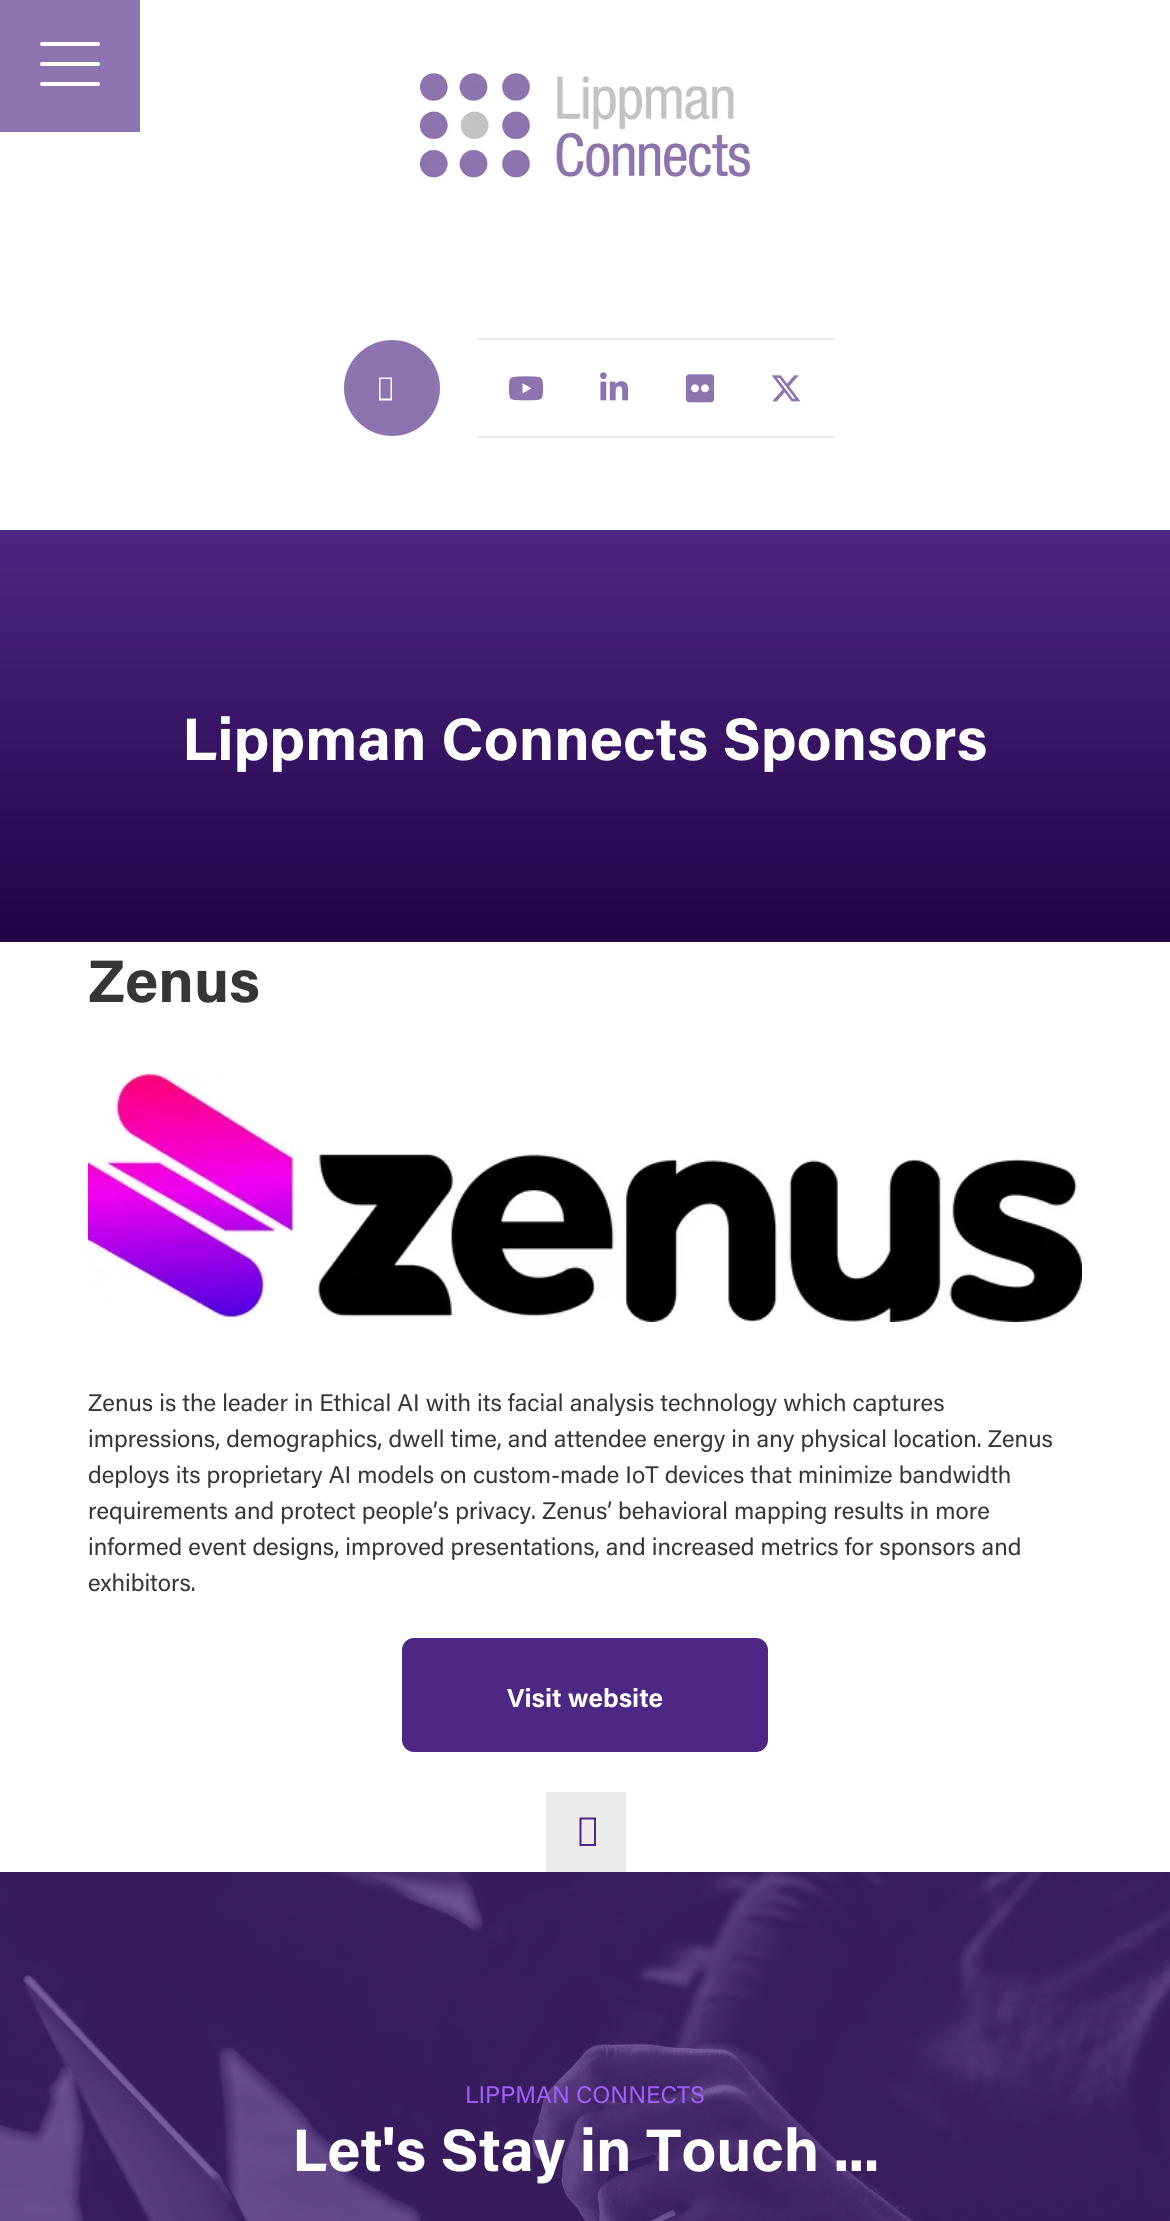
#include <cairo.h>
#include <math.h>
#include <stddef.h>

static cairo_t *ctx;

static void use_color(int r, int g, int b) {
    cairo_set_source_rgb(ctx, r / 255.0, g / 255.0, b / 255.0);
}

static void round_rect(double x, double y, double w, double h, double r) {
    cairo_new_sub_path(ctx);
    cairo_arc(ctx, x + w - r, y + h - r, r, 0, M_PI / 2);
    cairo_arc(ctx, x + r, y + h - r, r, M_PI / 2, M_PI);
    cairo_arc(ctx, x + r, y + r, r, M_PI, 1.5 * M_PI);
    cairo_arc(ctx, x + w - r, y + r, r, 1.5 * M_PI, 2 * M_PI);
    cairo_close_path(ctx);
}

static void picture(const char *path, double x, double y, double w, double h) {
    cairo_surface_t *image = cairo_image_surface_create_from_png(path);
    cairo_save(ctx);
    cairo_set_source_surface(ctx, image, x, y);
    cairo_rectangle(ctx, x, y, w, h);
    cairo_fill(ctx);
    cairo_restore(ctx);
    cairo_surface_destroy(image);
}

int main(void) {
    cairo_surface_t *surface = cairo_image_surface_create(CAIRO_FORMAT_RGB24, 1170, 2221);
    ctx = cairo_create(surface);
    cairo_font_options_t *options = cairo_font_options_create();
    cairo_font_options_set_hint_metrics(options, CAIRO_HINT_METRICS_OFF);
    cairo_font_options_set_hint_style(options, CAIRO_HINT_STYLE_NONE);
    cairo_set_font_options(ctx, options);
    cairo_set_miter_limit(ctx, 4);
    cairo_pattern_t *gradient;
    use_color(255, 255, 255);
    cairo_paint(ctx);
    use_color(141, 115, 175);
    cairo_rectangle(ctx, 0, 0, 140, 132);
    cairo_fill(ctx);
    use_color(255, 255, 255);
    round_rect(40, 62, 60, 4, 2);
    cairo_fill(ctx);
    round_rect(40, 42, 60, 4, 2);
    cairo_fill(ctx);
    round_rect(40, 82, 60, 4, 2);
    cairo_fill(ctx);
    picture("img1.png", 420, 73, 330, 105);
    use_color(141, 115, 175);
    cairo_arc(ctx, 392, 388, 48, 0, 2 * M_PI);
    cairo_fill(ctx);
    use_color(255, 255, 255);
    cairo_new_path(ctx);
    cairo_move_to(ctx, 379, 400.5);
    cairo_line_to(ctx, 379, 377.5);
    cairo_line_to(ctx, 392, 377.5);
    cairo_line_to(ctx, 392, 400.5);
    cairo_close_path(ctx);
    cairo_move_to(ctx, 380.5, 398.5);
    cairo_line_to(ctx, 390.5, 398.5);
    cairo_line_to(ctx, 390.5, 379);
    cairo_line_to(ctx, 380.5, 379);
    cairo_close_path(ctx);
    cairo_fill(ctx);
    use_color(231, 231, 231);
    cairo_rectangle(ctx, 478, 338, 356, 2);
    cairo_fill(ctx);
    cairo_rectangle(ctx, 478, 436, 356, 2);
    cairo_fill(ctx);
    picture("img2.png", 508, 376, 36, 25);
    picture("img3.png", 600, 372, 28, 29);
    picture("img4.png", 686, 374, 28, 29);
    picture("img5.png", 771, 375, 30, 27);
    gradient = cairo_pattern_create_linear(585, 942, 585, 530);
    cairo_pattern_add_color_stop_rgba(gradient, 0, 0.125, 0.012, 0.275, 1);
    cairo_pattern_add_color_stop_rgba(gradient, 1, 0.306, 0.149, 0.514, 1);
    cairo_set_source(ctx, gradient);
    cairo_pattern_destroy(gradient);
    cairo_rectangle(ctx, 0, 530, 1170, 412);
    cairo_fill(ctx);
    cairo_select_font_face(ctx, "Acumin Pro", CAIRO_FONT_SLANT_NORMAL, CAIRO_FONT_WEIGHT_BOLD);
    cairo_set_font_size(ctx, 60);
    use_color(255, 255, 255);
    cairo_move_to(ctx, 182, 760);
    cairo_show_text(ctx, "Lippman Connects Sponsors");
    use_color(54, 54, 54);
    cairo_move_to(ctx, 88, 1002);
    cairo_show_text(ctx, "Zenus");
    picture("img6.png", 88, 1074, 994, 248);
    cairo_select_font_face(ctx, "Acumin Pro", CAIRO_FONT_SLANT_NORMAL, CAIRO_FONT_WEIGHT_NORMAL);
    cairo_set_font_size(ctx, 24);
    cairo_move_to(ctx, 88, 1411);
    cairo_show_text(ctx, "Zenus is the leader in Ethical AI with its facial analysis technology which captures");
    cairo_move_to(ctx, 88, 1447);
    cairo_show_text(ctx, "impressions, demographics, dwell time, and attendee energy in any physical location. Zenus");
    cairo_move_to(ctx, 88, 1483);
    cairo_show_text(ctx, "deploys its proprietary AI models on custom-made IoT devices that minimize bandwidth");
    cairo_move_to(ctx, 88, 1519);
    cairo_show_text(ctx, "requirements and protect people’s privacy. Zenus’ behavioral mapping results in more");
    cairo_move_to(ctx, 88, 1555);
    cairo_show_text(ctx, "informed event designs, improved presentations, and increased metrics for sponsors and");
    cairo_move_to(ctx, 88, 1591);
    cairo_show_text(ctx, "exhibitors.");
    use_color(78, 38, 131);
    round_rect(404, 1640, 362, 110, 10);
    cairo_fill_preserve(ctx);
    cairo_set_line_width(ctx, 4);
    cairo_stroke(ctx);
    cairo_select_font_face(ctx, "Acumin Pro", CAIRO_FONT_SLANT_NORMAL, CAIRO_FONT_WEIGHT_BOLD);
    cairo_set_font_size(ctx, 26);
    use_color(255, 255, 255);
    cairo_move_to(ctx, 507, 1707);
    cairo_show_text(ctx, "Visit website");
    use_color(235, 235, 235);
    cairo_rectangle(ctx, 546, 1792, 80, 80);
    cairo_fill(ctx);
    use_color(78, 38, 131);
    cairo_new_path(ctx);
    cairo_move_to(ctx, 579.5, 1846);
    cairo_line_to(ctx, 579.5, 1817.5);
    cairo_line_to(ctx, 596, 1817.5);
    cairo_line_to(ctx, 596, 1846);
    cairo_close_path(ctx);
    cairo_move_to(ctx, 581.5, 1844);
    cairo_line_to(ctx, 594, 1844);
    cairo_line_to(ctx, 594, 1819.5);
    cairo_line_to(ctx, 581.5, 1819.5);
    cairo_close_path(ctx);
    cairo_fill(ctx);
    picture("img7.png", 0, 1872, 1170, 349);
    cairo_select_font_face(ctx, "Acumin Pro", CAIRO_FONT_SLANT_NORMAL, CAIRO_FONT_WEIGHT_NORMAL);
    cairo_set_font_size(ctx, 24);
    use_color(161, 95, 250);
    cairo_move_to(ctx, 465, 2103);
    cairo_show_text(ctx, "LIPPMAN CONNECTS");
    cairo_select_font_face(ctx, "Acumin Pro", CAIRO_FONT_SLANT_NORMAL, CAIRO_FONT_WEIGHT_BOLD);
    cairo_set_font_size(ctx, 60);
    use_color(255, 255, 255);
    cairo_move_to(ctx, 292, 2171);
    cairo_show_text(ctx, "Let's Stay in Touch ...");
    cairo_surface_write_to_png(surface, "result.png");
    cairo_font_options_destroy(options);
    cairo_destroy(ctx);
    cairo_surface_destroy(surface);
    return 0;
}
